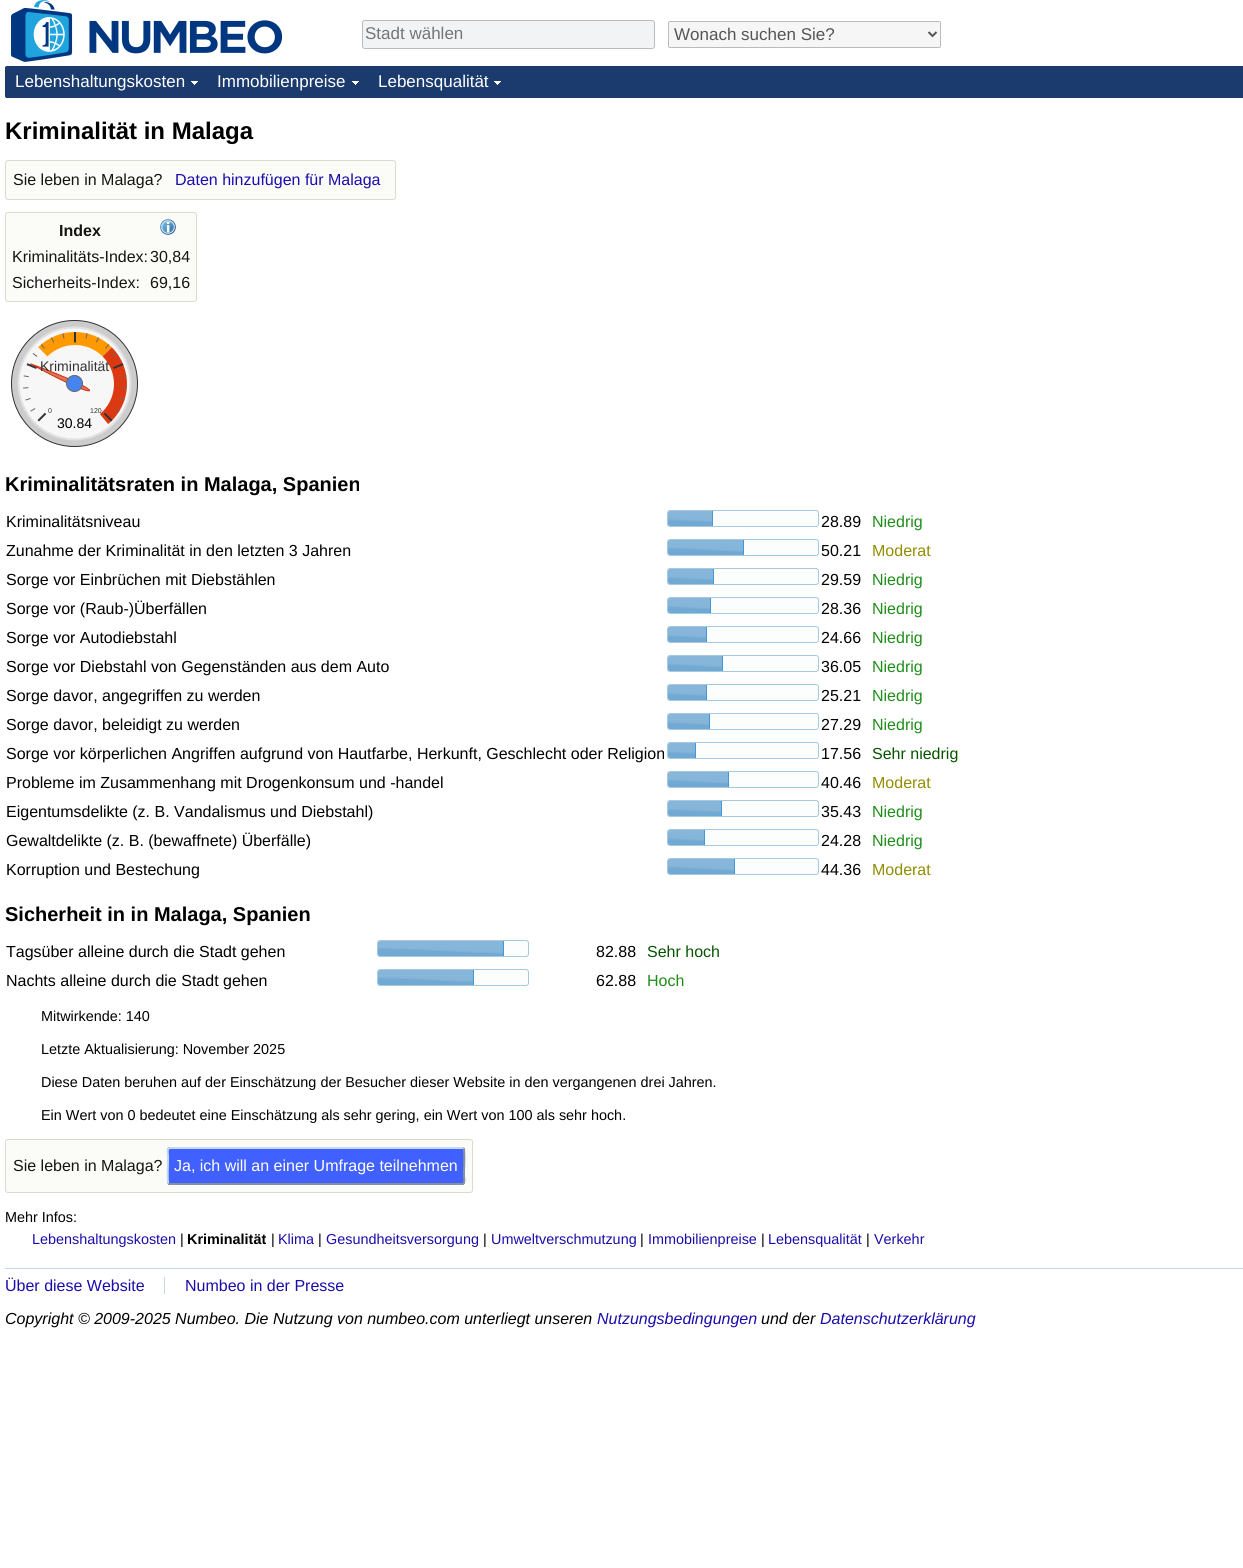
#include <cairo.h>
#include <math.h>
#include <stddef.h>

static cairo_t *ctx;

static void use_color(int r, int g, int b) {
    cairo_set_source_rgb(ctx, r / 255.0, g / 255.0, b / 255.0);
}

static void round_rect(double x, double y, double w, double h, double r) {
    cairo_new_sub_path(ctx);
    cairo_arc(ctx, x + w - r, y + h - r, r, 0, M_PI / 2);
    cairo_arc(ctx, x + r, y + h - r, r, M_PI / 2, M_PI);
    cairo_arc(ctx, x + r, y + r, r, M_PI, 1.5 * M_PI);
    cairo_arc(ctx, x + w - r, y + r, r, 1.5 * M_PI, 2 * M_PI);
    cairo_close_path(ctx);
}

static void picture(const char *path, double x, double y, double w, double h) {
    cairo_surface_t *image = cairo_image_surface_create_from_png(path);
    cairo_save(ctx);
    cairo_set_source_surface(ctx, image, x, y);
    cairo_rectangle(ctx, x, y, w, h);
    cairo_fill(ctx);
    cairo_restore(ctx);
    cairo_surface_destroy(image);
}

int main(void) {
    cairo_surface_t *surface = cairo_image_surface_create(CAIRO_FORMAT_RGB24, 1243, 1568);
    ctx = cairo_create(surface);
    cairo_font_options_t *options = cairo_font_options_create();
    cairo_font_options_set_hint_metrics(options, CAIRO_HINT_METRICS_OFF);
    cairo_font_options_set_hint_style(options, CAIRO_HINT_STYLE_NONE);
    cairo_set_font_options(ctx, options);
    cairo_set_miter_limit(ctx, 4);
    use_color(255, 255, 255);
    cairo_paint(ctx);
    picture("img1.png", 11, 0, 62, 62);
    picture("img2.png", 89, 20, 193, 34);
    use_color(241, 243, 244);
    round_rect(362.5, 20.5, 292, 28, 2.5);
    cairo_fill_preserve(ctx);
    use_color(187, 187, 187);
    cairo_set_line_width(ctx, 1);
    cairo_stroke(ctx);
    cairo_select_font_face(ctx, "Liberation Sans", CAIRO_FONT_SLANT_NORMAL, CAIRO_FONT_WEIGHT_NORMAL);
    cairo_set_font_size(ctx, 17);
    use_color(117, 117, 117);
    cairo_move_to(ctx, 365, 39);
    cairo_show_text(ctx, "Stadt wählen");
    use_color(246, 246, 246);
    round_rect(668.5, 21.5, 272, 26, 1.5);
    cairo_fill_preserve(ctx);
    use_color(187, 187, 187);
    cairo_stroke(ctx);
    cairo_new_path(ctx);
    cairo_move_to(ctx, 928.5, 32);
    cairo_line_to(ctx, 932.5, 36);
    cairo_line_to(ctx, 936.5, 32);
    use_color(85, 85, 85);
    cairo_set_line_width(ctx, 2);
    cairo_stroke(ctx);
    cairo_move_to(ctx, 674, 40);
    cairo_show_text(ctx, "Wonach suchen Sie?");
    use_color(27, 59, 111);
    round_rect(5, 66, 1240, 32, 2);
    cairo_fill(ctx);
    round_rect(5, 66, 202, 32, 3);
    cairo_fill(ctx);
    picture("img3.png", 191, 81, 7, 4);
    use_color(255, 255, 255);
    cairo_move_to(ctx, 15, 87);
    cairo_show_text(ctx, "Lebenshaltungskosten");
    picture("img3.png", 352, 81, 7, 4);
    cairo_move_to(ctx, 217, 87);
    cairo_show_text(ctx, "Immobilienpreise");
    picture("img3.png", 494, 81, 7, 4);
    cairo_move_to(ctx, 378, 87);
    cairo_show_text(ctx, "Lebensqualität");
    cairo_select_font_face(ctx, "Liberation Sans", CAIRO_FONT_SLANT_NORMAL, CAIRO_FONT_WEIGHT_BOLD);
    cairo_set_font_size(ctx, 24);
    use_color(0, 0, 0);
    cairo_move_to(ctx, 5, 139);
    cairo_show_text(ctx, "Kriminalität in Malaga");
    use_color(251, 251, 248);
    round_rect(5.5, 160.5, 390, 39, 2.5);
    cairo_fill_preserve(ctx);
    use_color(220, 218, 203);
    cairo_set_line_width(ctx, 1);
    cairo_stroke(ctx);
    cairo_select_font_face(ctx, "Liberation Sans", CAIRO_FONT_SLANT_NORMAL, CAIRO_FONT_WEIGHT_NORMAL);
    cairo_set_font_size(ctx, 16);
    use_color(20, 20, 18);
    cairo_move_to(ctx, 13, 185);
    cairo_show_text(ctx, "Sie leben in Malaga?");
    use_color(26, 13, 171);
    cairo_move_to(ctx, 175, 185);
    cairo_show_text(ctx, "Daten hinzufügen für Malaga");
    use_color(251, 251, 248);
    round_rect(5.5, 212.5, 191, 89, 2.5);
    cairo_fill_preserve(ctx);
    use_color(220, 218, 203);
    cairo_stroke(ctx);
    cairo_select_font_face(ctx, "Liberation Sans", CAIRO_FONT_SLANT_NORMAL, CAIRO_FONT_WEIGHT_BOLD);
    use_color(20, 20, 18);
    cairo_move_to(ctx, 59, 236);
    cairo_show_text(ctx, "Index");
    picture("img4.png", 160, 219, 16, 16);
    cairo_select_font_face(ctx, "Liberation Sans", CAIRO_FONT_SLANT_NORMAL, CAIRO_FONT_WEIGHT_NORMAL);
    cairo_move_to(ctx, 12, 262);
    cairo_show_text(ctx, "Kriminalitäts-Index:");
    cairo_move_to(ctx, 150, 262);
    cairo_show_text(ctx, "30,84");
    cairo_move_to(ctx, 12, 288);
    cairo_show_text(ctx, "Sicherheits-Index:");
    cairo_move_to(ctx, 150, 288);
    cairo_show_text(ctx, "69,16");
    picture("img5.png", 11, 320, 127, 127);
    cairo_set_font_size(ctx, 14);
    use_color(51, 51, 51);
    cairo_move_to(ctx, 40, 371);
    cairo_show_text(ctx, "Kriminalität");
    cairo_set_font_size(ctx, 7);
    cairo_move_to(ctx, 48, 413);
    cairo_show_text(ctx, "0");
    cairo_move_to(ctx, 90, 413);
    cairo_show_text(ctx, "120");
    cairo_set_font_size(ctx, 14);
    use_color(0, 0, 0);
    cairo_move_to(ctx, 57, 428);
    cairo_show_text(ctx, "30.84");
    cairo_select_font_face(ctx, "Liberation Sans", CAIRO_FONT_SLANT_NORMAL, CAIRO_FONT_WEIGHT_BOLD);
    cairo_set_font_size(ctx, 20);
    cairo_move_to(ctx, 5, 491);
    cairo_show_text(ctx, "Kriminalitätsraten in Malaga, Spanien");
    cairo_select_font_face(ctx, "Liberation Sans", CAIRO_FONT_SLANT_NORMAL, CAIRO_FONT_WEIGHT_NORMAL);
    cairo_set_font_size(ctx, 16);
    cairo_move_to(ctx, 6, 527);
    cairo_show_text(ctx, "Kriminalitätsniveau");
    use_color(252, 253, 253);
    round_rect(667.5, 510.5, 151, 16, 2.5);
    cairo_fill_preserve(ctx);
    use_color(166, 201, 226);
    cairo_stroke(ctx);
    picture("img6.png", 668, 511, 44, 15);
    use_color(66, 151, 215);
    cairo_rectangle(ctx, 712, 511, 1, 15);
    cairo_fill(ctx);
    use_color(0, 0, 0);
    cairo_move_to(ctx, 821, 527);
    cairo_show_text(ctx, "28.89");
    use_color(30, 142, 24);
    cairo_move_to(ctx, 872, 527);
    cairo_show_text(ctx, "Niedrig");
    use_color(0, 0, 0);
    cairo_move_to(ctx, 6, 556);
    cairo_show_text(ctx, "Zunahme der Kriminalität in den letzten 3 Jahren");
    use_color(252, 253, 253);
    round_rect(667.5, 539.5, 151, 16, 2.5);
    cairo_fill_preserve(ctx);
    use_color(166, 201, 226);
    cairo_stroke(ctx);
    picture("img7.png", 668, 540, 75, 15);
    use_color(66, 151, 215);
    cairo_rectangle(ctx, 743, 540, 1, 15);
    cairo_fill(ctx);
    use_color(0, 0, 0);
    cairo_move_to(ctx, 821, 556);
    cairo_show_text(ctx, "50.21");
    use_color(145, 141, 0);
    cairo_move_to(ctx, 872, 556);
    cairo_show_text(ctx, "Moderat");
    use_color(0, 0, 0);
    cairo_move_to(ctx, 6, 585);
    cairo_show_text(ctx, "Sorge vor Einbrüchen mit Diebstählen");
    use_color(252, 253, 253);
    round_rect(667.5, 568.5, 151, 16, 2.5);
    cairo_fill_preserve(ctx);
    use_color(166, 201, 226);
    cairo_stroke(ctx);
    picture("img8.png", 668, 569, 45, 15);
    use_color(66, 151, 215);
    cairo_rectangle(ctx, 713, 569, 1, 15);
    cairo_fill(ctx);
    use_color(0, 0, 0);
    cairo_move_to(ctx, 821, 585);
    cairo_show_text(ctx, "29.59");
    use_color(30, 142, 24);
    cairo_move_to(ctx, 872, 585);
    cairo_show_text(ctx, "Niedrig");
    use_color(0, 0, 0);
    cairo_move_to(ctx, 6, 614);
    cairo_show_text(ctx, "Sorge vor (Raub-)Überfällen");
    use_color(252, 253, 253);
    round_rect(667.5, 597.5, 151, 16, 2.5);
    cairo_fill_preserve(ctx);
    use_color(166, 201, 226);
    cairo_stroke(ctx);
    picture("img9.png", 668, 598, 42, 15);
    use_color(66, 151, 215);
    cairo_rectangle(ctx, 710, 598, 1, 15);
    cairo_fill(ctx);
    use_color(0, 0, 0);
    cairo_move_to(ctx, 821, 614);
    cairo_show_text(ctx, "28.36");
    use_color(30, 142, 24);
    cairo_move_to(ctx, 872, 614);
    cairo_show_text(ctx, "Niedrig");
    use_color(0, 0, 0);
    cairo_move_to(ctx, 6, 643);
    cairo_show_text(ctx, "Sorge vor Autodiebstahl");
    use_color(252, 253, 253);
    round_rect(667.5, 626.5, 151, 16, 2.5);
    cairo_fill_preserve(ctx);
    use_color(166, 201, 226);
    cairo_stroke(ctx);
    picture("img10.png", 668, 627, 38, 15);
    use_color(66, 151, 215);
    cairo_rectangle(ctx, 706, 627, 1, 15);
    cairo_fill(ctx);
    use_color(0, 0, 0);
    cairo_move_to(ctx, 821, 643);
    cairo_show_text(ctx, "24.66");
    use_color(30, 142, 24);
    cairo_move_to(ctx, 872, 643);
    cairo_show_text(ctx, "Niedrig");
    use_color(0, 0, 0);
    cairo_move_to(ctx, 6, 672);
    cairo_show_text(ctx, "Sorge vor Diebstahl von Gegenständen aus dem Auto");
    use_color(252, 253, 253);
    round_rect(667.5, 655.5, 151, 16, 2.5);
    cairo_fill_preserve(ctx);
    use_color(166, 201, 226);
    cairo_stroke(ctx);
    picture("img11.png", 668, 656, 54, 15);
    use_color(66, 151, 215);
    cairo_rectangle(ctx, 722, 656, 1, 15);
    cairo_fill(ctx);
    use_color(0, 0, 0);
    cairo_move_to(ctx, 821, 672);
    cairo_show_text(ctx, "36.05");
    use_color(30, 142, 24);
    cairo_move_to(ctx, 872, 672);
    cairo_show_text(ctx, "Niedrig");
    use_color(0, 0, 0);
    cairo_move_to(ctx, 6, 701);
    cairo_show_text(ctx, "Sorge davor, angegriffen zu werden");
    use_color(252, 253, 253);
    round_rect(667.5, 684.5, 151, 16, 2.5);
    cairo_fill_preserve(ctx);
    use_color(166, 201, 226);
    cairo_stroke(ctx);
    picture("img10.png", 668, 685, 38, 15);
    use_color(66, 151, 215);
    cairo_rectangle(ctx, 706, 685, 1, 15);
    cairo_fill(ctx);
    use_color(0, 0, 0);
    cairo_move_to(ctx, 821, 701);
    cairo_show_text(ctx, "25.21");
    use_color(30, 142, 24);
    cairo_move_to(ctx, 872, 701);
    cairo_show_text(ctx, "Niedrig");
    use_color(0, 0, 0);
    cairo_move_to(ctx, 6, 730);
    cairo_show_text(ctx, "Sorge davor, beleidigt zu werden");
    use_color(252, 253, 253);
    round_rect(667.5, 713.5, 151, 16, 2.5);
    cairo_fill_preserve(ctx);
    use_color(166, 201, 226);
    cairo_stroke(ctx);
    picture("img12.png", 668, 714, 41, 15);
    use_color(66, 151, 215);
    cairo_rectangle(ctx, 709, 714, 1, 15);
    cairo_fill(ctx);
    use_color(0, 0, 0);
    cairo_move_to(ctx, 821, 730);
    cairo_show_text(ctx, "27.29");
    use_color(30, 142, 24);
    cairo_move_to(ctx, 872, 730);
    cairo_show_text(ctx, "Niedrig");
    use_color(0, 0, 0);
    cairo_move_to(ctx, 6, 759);
    cairo_show_text(ctx, "Sorge vor körperlichen Angriffen aufgrund von Hautfarbe, Herkunft, Geschlecht oder Religion");
    use_color(252, 253, 253);
    round_rect(667.5, 742.5, 151, 16, 2.5);
    cairo_fill_preserve(ctx);
    use_color(166, 201, 226);
    cairo_stroke(ctx);
    picture("img13.png", 668, 743, 27, 15);
    use_color(66, 151, 215);
    cairo_rectangle(ctx, 695, 743, 1, 15);
    cairo_fill(ctx);
    use_color(0, 0, 0);
    cairo_move_to(ctx, 821, 759);
    cairo_show_text(ctx, "17.56");
    use_color(4, 84, 0);
    cairo_move_to(ctx, 872, 759);
    cairo_show_text(ctx, "Sehr niedrig");
    use_color(0, 0, 0);
    cairo_move_to(ctx, 6, 788);
    cairo_show_text(ctx, "Probleme im Zusammenhang mit Drogenkonsum und -handel");
    use_color(252, 253, 253);
    round_rect(667.5, 771.5, 151, 16, 2.5);
    cairo_fill_preserve(ctx);
    use_color(166, 201, 226);
    cairo_stroke(ctx);
    picture("img14.png", 668, 772, 60, 15);
    use_color(66, 151, 215);
    cairo_rectangle(ctx, 728, 772, 1, 15);
    cairo_fill(ctx);
    use_color(0, 0, 0);
    cairo_move_to(ctx, 821, 788);
    cairo_show_text(ctx, "40.46");
    use_color(145, 141, 0);
    cairo_move_to(ctx, 872, 788);
    cairo_show_text(ctx, "Moderat");
    use_color(0, 0, 0);
    cairo_move_to(ctx, 6, 817);
    cairo_show_text(ctx, "Eigentumsdelikte (z. B. Vandalismus und Diebstahl)");
    use_color(252, 253, 253);
    round_rect(667.5, 800.5, 151, 16, 2.5);
    cairo_fill_preserve(ctx);
    use_color(166, 201, 226);
    cairo_stroke(ctx);
    picture("img15.png", 668, 801, 53, 15);
    use_color(66, 151, 215);
    cairo_rectangle(ctx, 721, 801, 1, 15);
    cairo_fill(ctx);
    use_color(0, 0, 0);
    cairo_move_to(ctx, 821, 817);
    cairo_show_text(ctx, "35.43");
    use_color(30, 142, 24);
    cairo_move_to(ctx, 872, 817);
    cairo_show_text(ctx, "Niedrig");
    use_color(0, 0, 0);
    cairo_move_to(ctx, 6, 846);
    cairo_show_text(ctx, "Gewaltdelikte (z. B. (bewaffnete) Überfälle)");
    use_color(252, 253, 253);
    round_rect(667.5, 829.5, 151, 16, 2.5);
    cairo_fill_preserve(ctx);
    use_color(166, 201, 226);
    cairo_stroke(ctx);
    picture("img16.png", 668, 830, 36, 15);
    use_color(66, 151, 215);
    cairo_rectangle(ctx, 704, 830, 1, 15);
    cairo_fill(ctx);
    use_color(0, 0, 0);
    cairo_move_to(ctx, 821, 846);
    cairo_show_text(ctx, "24.28");
    use_color(30, 142, 24);
    cairo_move_to(ctx, 872, 846);
    cairo_show_text(ctx, "Niedrig");
    use_color(0, 0, 0);
    cairo_move_to(ctx, 6, 875);
    cairo_show_text(ctx, "Korruption und Bestechung");
    use_color(252, 253, 253);
    round_rect(667.5, 858.5, 151, 16, 2.5);
    cairo_fill_preserve(ctx);
    use_color(166, 201, 226);
    cairo_stroke(ctx);
    picture("img17.png", 668, 859, 66, 15);
    use_color(66, 151, 215);
    cairo_rectangle(ctx, 734, 859, 1, 15);
    cairo_fill(ctx);
    use_color(0, 0, 0);
    cairo_move_to(ctx, 821, 875);
    cairo_show_text(ctx, "44.36");
    use_color(145, 141, 0);
    cairo_move_to(ctx, 872, 875);
    cairo_show_text(ctx, "Moderat");
    cairo_select_font_face(ctx, "Liberation Sans", CAIRO_FONT_SLANT_NORMAL, CAIRO_FONT_WEIGHT_BOLD);
    cairo_set_font_size(ctx, 20);
    use_color(0, 0, 0);
    cairo_move_to(ctx, 5, 921);
    cairo_show_text(ctx, "Sicherheit in in Malaga, Spanien");
    cairo_select_font_face(ctx, "Liberation Sans", CAIRO_FONT_SLANT_NORMAL, CAIRO_FONT_WEIGHT_NORMAL);
    cairo_set_font_size(ctx, 16);
    cairo_move_to(ctx, 6, 957);
    cairo_show_text(ctx, "Tagsüber alleine durch die Stadt gehen");
    use_color(252, 253, 253);
    round_rect(377.5, 940.5, 151, 16, 2.5);
    cairo_fill_preserve(ctx);
    use_color(166, 201, 226);
    cairo_stroke(ctx);
    picture("img18.png", 378, 941, 125, 15);
    use_color(66, 151, 215);
    cairo_rectangle(ctx, 503, 941, 1, 15);
    cairo_fill(ctx);
    use_color(0, 0, 0);
    cairo_move_to(ctx, 596, 957);
    cairo_show_text(ctx, "82.88");
    use_color(4, 84, 0);
    cairo_move_to(ctx, 647, 957);
    cairo_show_text(ctx, "Sehr hoch");
    use_color(0, 0, 0);
    cairo_move_to(ctx, 6, 986);
    cairo_show_text(ctx, "Nachts alleine durch die Stadt gehen");
    use_color(252, 253, 253);
    round_rect(377.5, 969.5, 151, 16, 2.5);
    cairo_fill_preserve(ctx);
    use_color(166, 201, 226);
    cairo_stroke(ctx);
    picture("img19.png", 378, 970, 95, 15);
    use_color(66, 151, 215);
    cairo_rectangle(ctx, 473, 970, 1, 15);
    cairo_fill(ctx);
    use_color(0, 0, 0);
    cairo_move_to(ctx, 596, 986);
    cairo_show_text(ctx, "62.88");
    use_color(30, 142, 24);
    cairo_move_to(ctx, 647, 986);
    cairo_show_text(ctx, "Hoch");
    cairo_set_font_size(ctx, 14.4);
    use_color(0, 0, 0);
    cairo_move_to(ctx, 41, 1021);
    cairo_show_text(ctx, "Mitwirkende: 140");
    cairo_move_to(ctx, 41, 1054);
    cairo_show_text(ctx, "Letzte Aktualisierung: November 2025");
    cairo_move_to(ctx, 41, 1087);
    cairo_show_text(ctx, "Diese Daten beruhen auf der Einschätzung der Besucher dieser Website in den vergangenen drei Jahren.");
    cairo_move_to(ctx, 41, 1120);
    cairo_show_text(ctx, "Ein Wert von 0 bedeutet eine Einschätzung als sehr gering, ein Wert von 100 als sehr hoch.");
    use_color(251, 251, 248);
    round_rect(5.5, 1139.5, 467, 53, 2.5);
    cairo_fill_preserve(ctx);
    use_color(220, 218, 203);
    cairo_stroke(ctx);
    cairo_set_font_size(ctx, 16);
    use_color(20, 20, 18);
    cairo_move_to(ctx, 13, 1171);
    cairo_show_text(ctx, "Sie leben in Malaga?");
    use_color(64, 96, 255);
    round_rect(167, 1147, 298, 38, 3);
    cairo_fill(ctx);
    cairo_new_path(ctx);
    cairo_move_to(ctx, 463.5, 1148.5);
    cairo_curve_to(ctx, 465, 1150, 464, 1168, 464, 1171.5);
    cairo_line_to(ctx, 464, 1176.5);
    cairo_curve_to(ctx, 464, 1177.5, 465.5, 1184, 462, 1184);
    cairo_line_to(ctx, 169, 1184);
    cairo_line_to(ctx, 168.5, 1183.5);
    use_color(131, 146, 157);
    cairo_set_line_width(ctx, 2);
    cairo_stroke(ctx);
    cairo_new_path(ctx);
    cairo_move_to(ctx, 168.5, 1183.5);
    cairo_curve_to(ctx, 167, 1182, 168, 1164, 168, 1160.5);
    cairo_line_to(ctx, 168, 1155.5);
    cairo_curve_to(ctx, 168, 1154.5, 166.5, 1148, 170, 1148);
    cairo_line_to(ctx, 463, 1148);
    cairo_line_to(ctx, 463.5, 1148.5);
    use_color(197, 219, 236);
    cairo_stroke(ctx);
    use_color(255, 255, 255);
    cairo_move_to(ctx, 174, 1171);
    cairo_show_text(ctx, "Ja, ich will an einer Umfrage teilnehmen");
    cairo_set_font_size(ctx, 14.4);
    use_color(0, 0, 0);
    cairo_move_to(ctx, 5, 1222);
    cairo_show_text(ctx, "Mehr Infos:");
    use_color(26, 13, 171);
    cairo_move_to(ctx, 32, 1244);
    cairo_show_text(ctx, "Lebenshaltungskosten");
    use_color(0, 0, 0);
    cairo_move_to(ctx, 180, 1244);
    cairo_show_text(ctx, "|");
    cairo_select_font_face(ctx, "Liberation Sans", CAIRO_FONT_SLANT_NORMAL, CAIRO_FONT_WEIGHT_BOLD);
    cairo_move_to(ctx, 187, 1244);
    cairo_show_text(ctx, "Kriminalität");
    cairo_select_font_face(ctx, "Liberation Sans", CAIRO_FONT_SLANT_NORMAL, CAIRO_FONT_WEIGHT_NORMAL);
    cairo_move_to(ctx, 271, 1244);
    cairo_show_text(ctx, "|");
    use_color(26, 13, 171);
    cairo_move_to(ctx, 278, 1244);
    cairo_show_text(ctx, "Klima");
    use_color(0, 0, 0);
    cairo_move_to(ctx, 318, 1244);
    cairo_show_text(ctx, "|");
    use_color(26, 13, 171);
    cairo_move_to(ctx, 326, 1244);
    cairo_show_text(ctx, "Gesundheitsversorgung");
    use_color(0, 0, 0);
    cairo_move_to(ctx, 483, 1244);
    cairo_show_text(ctx, "|");
    use_color(26, 13, 171);
    cairo_move_to(ctx, 491, 1244);
    cairo_show_text(ctx, "Umweltverschmutzung");
    use_color(0, 0, 0);
    cairo_move_to(ctx, 640, 1244);
    cairo_show_text(ctx, "|");
    use_color(26, 13, 171);
    cairo_move_to(ctx, 648, 1244);
    cairo_show_text(ctx, "Immobilienpreise");
    use_color(0, 0, 0);
    cairo_move_to(ctx, 761, 1244);
    cairo_show_text(ctx, "|");
    use_color(26, 13, 171);
    cairo_move_to(ctx, 768, 1244);
    cairo_show_text(ctx, "Lebensqualität");
    use_color(0, 0, 0);
    cairo_move_to(ctx, 866, 1244);
    cairo_show_text(ctx, "|");
    use_color(26, 13, 171);
    cairo_move_to(ctx, 874, 1244);
    cairo_show_text(ctx, "Verkehr");
    use_color(197, 219, 236);
    cairo_rectangle(ctx, 5, 1268, 1238, 1);
    cairo_fill(ctx);
    cairo_set_font_size(ctx, 16);
    use_color(26, 13, 171);
    cairo_move_to(ctx, 5, 1291);
    cairo_show_text(ctx, "Über diese Website");
    use_color(197, 219, 236);
    cairo_rectangle(ctx, 164, 1277, 1, 17);
    cairo_fill(ctx);
    use_color(26, 13, 171);
    cairo_move_to(ctx, 185, 1291);
    cairo_show_text(ctx, "Numbeo in der Presse");
    cairo_select_font_face(ctx, "Liberation Sans", CAIRO_FONT_SLANT_ITALIC, CAIRO_FONT_WEIGHT_NORMAL);
    use_color(0, 0, 0);
    cairo_move_to(ctx, 5, 1324);
    cairo_show_text(ctx, "Copyright © 2009-2025 Numbeo. Die Nutzung von numbeo.com unterliegt unseren");
    use_color(26, 13, 171);
    cairo_move_to(ctx, 597, 1324);
    cairo_show_text(ctx, "Nutzungsbedingungen");
    use_color(0, 0, 0);
    cairo_move_to(ctx, 761, 1324);
    cairo_show_text(ctx, "und der");
    use_color(26, 13, 171);
    cairo_move_to(ctx, 820, 1324);
    cairo_show_text(ctx, "Datenschutzerklärung");
    cairo_surface_write_to_png(surface, "result.png");
    cairo_font_options_destroy(options);
    cairo_destroy(ctx);
    cairo_surface_destroy(surface);
    return 0;
}
